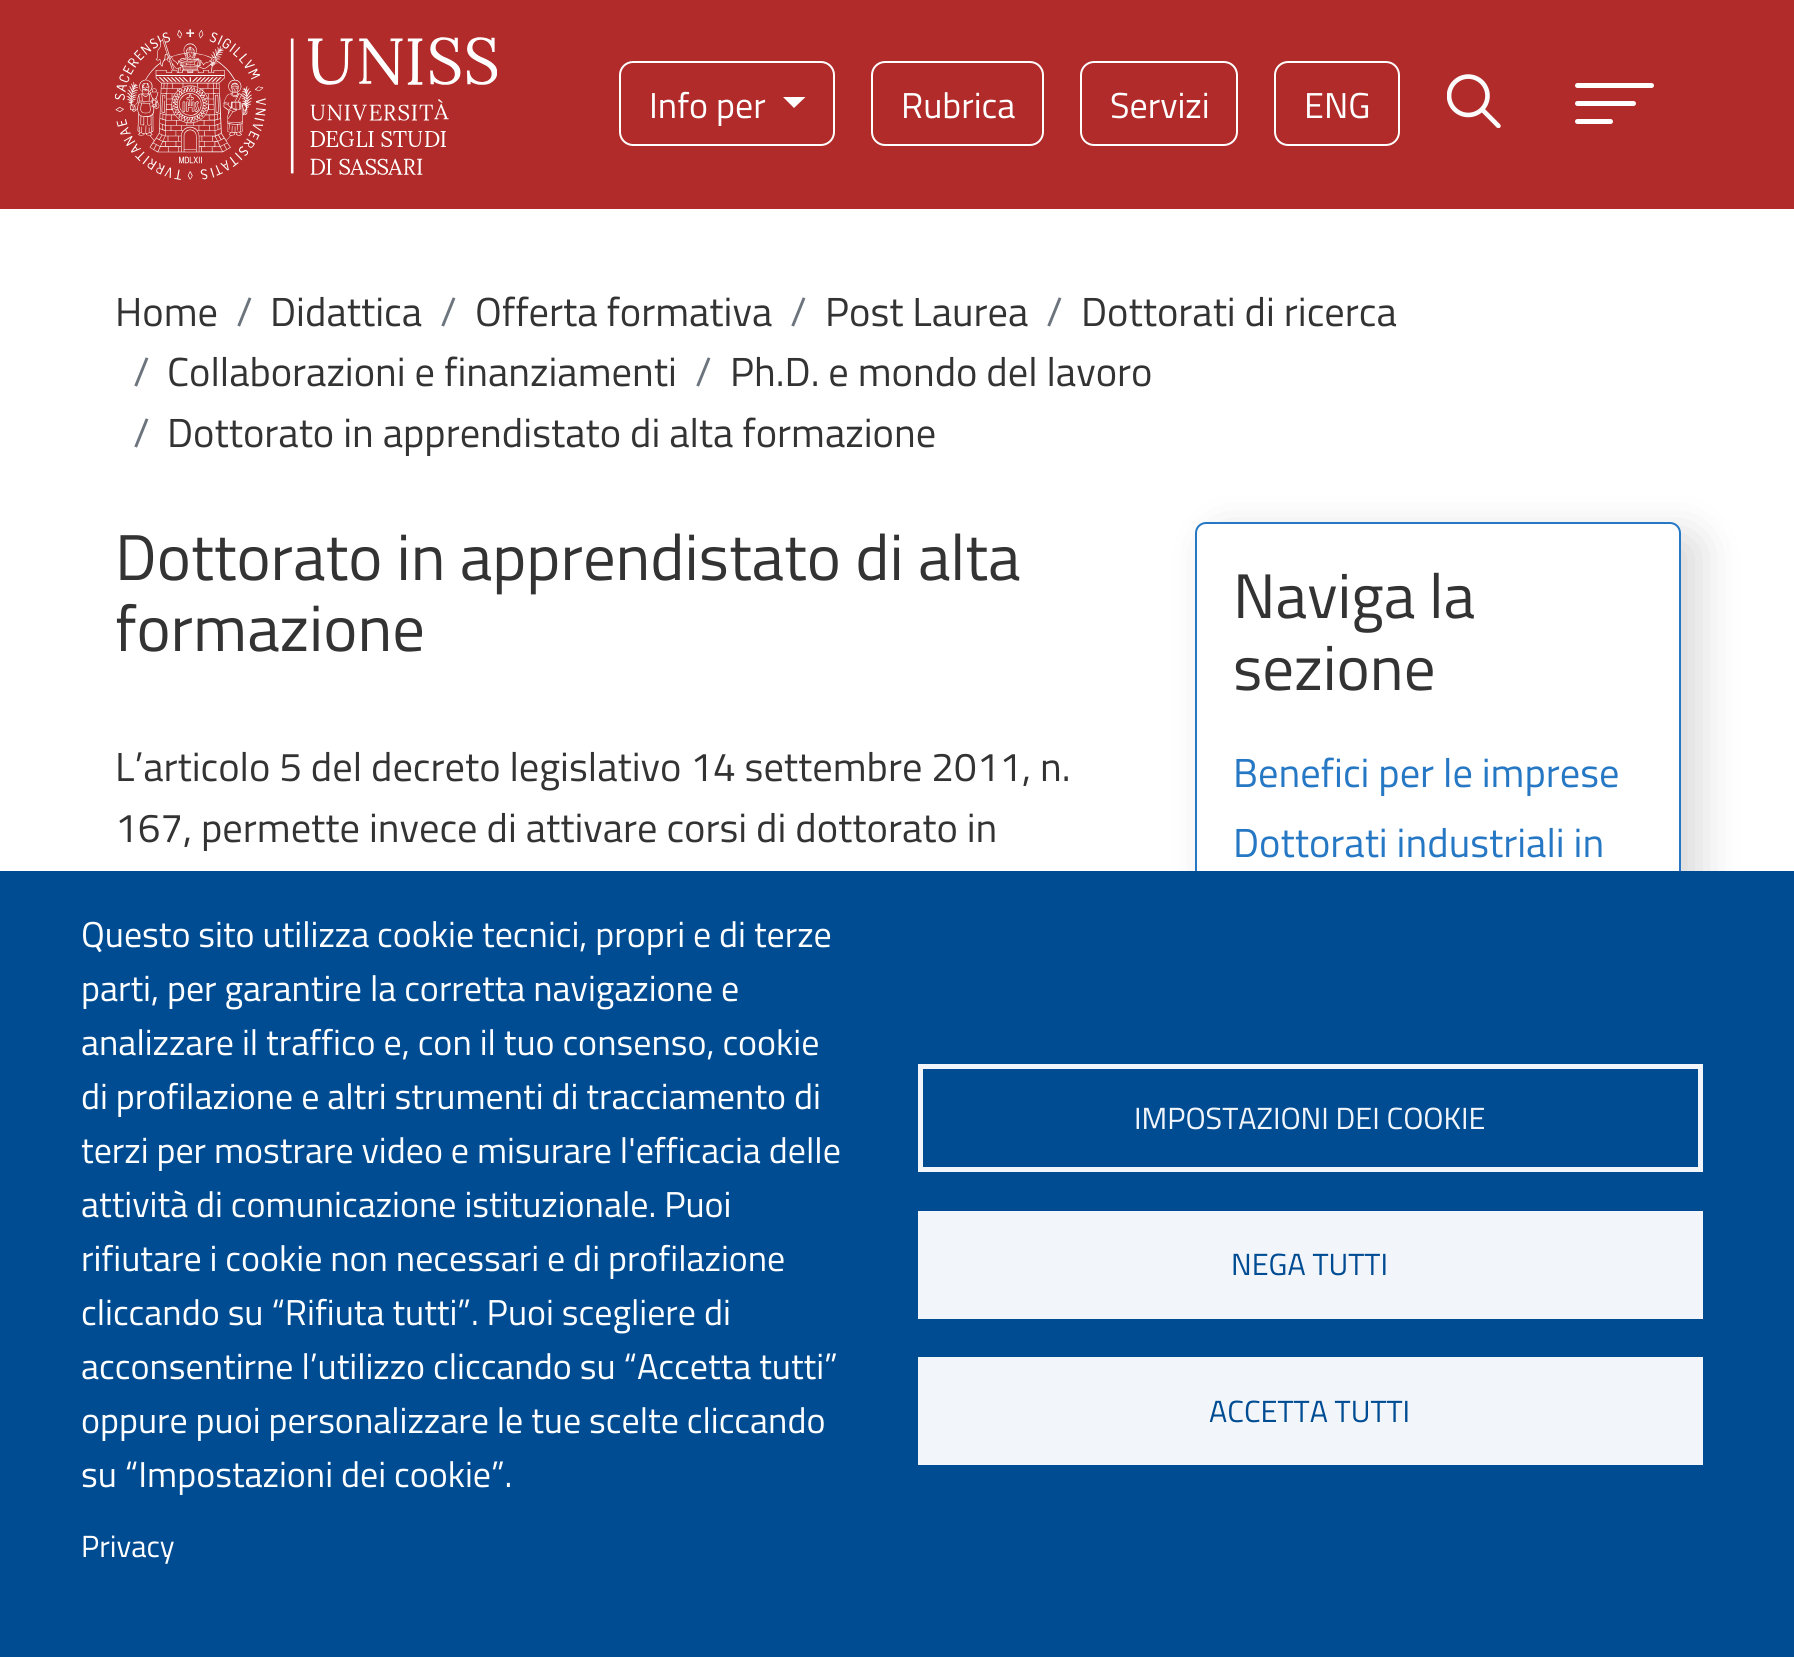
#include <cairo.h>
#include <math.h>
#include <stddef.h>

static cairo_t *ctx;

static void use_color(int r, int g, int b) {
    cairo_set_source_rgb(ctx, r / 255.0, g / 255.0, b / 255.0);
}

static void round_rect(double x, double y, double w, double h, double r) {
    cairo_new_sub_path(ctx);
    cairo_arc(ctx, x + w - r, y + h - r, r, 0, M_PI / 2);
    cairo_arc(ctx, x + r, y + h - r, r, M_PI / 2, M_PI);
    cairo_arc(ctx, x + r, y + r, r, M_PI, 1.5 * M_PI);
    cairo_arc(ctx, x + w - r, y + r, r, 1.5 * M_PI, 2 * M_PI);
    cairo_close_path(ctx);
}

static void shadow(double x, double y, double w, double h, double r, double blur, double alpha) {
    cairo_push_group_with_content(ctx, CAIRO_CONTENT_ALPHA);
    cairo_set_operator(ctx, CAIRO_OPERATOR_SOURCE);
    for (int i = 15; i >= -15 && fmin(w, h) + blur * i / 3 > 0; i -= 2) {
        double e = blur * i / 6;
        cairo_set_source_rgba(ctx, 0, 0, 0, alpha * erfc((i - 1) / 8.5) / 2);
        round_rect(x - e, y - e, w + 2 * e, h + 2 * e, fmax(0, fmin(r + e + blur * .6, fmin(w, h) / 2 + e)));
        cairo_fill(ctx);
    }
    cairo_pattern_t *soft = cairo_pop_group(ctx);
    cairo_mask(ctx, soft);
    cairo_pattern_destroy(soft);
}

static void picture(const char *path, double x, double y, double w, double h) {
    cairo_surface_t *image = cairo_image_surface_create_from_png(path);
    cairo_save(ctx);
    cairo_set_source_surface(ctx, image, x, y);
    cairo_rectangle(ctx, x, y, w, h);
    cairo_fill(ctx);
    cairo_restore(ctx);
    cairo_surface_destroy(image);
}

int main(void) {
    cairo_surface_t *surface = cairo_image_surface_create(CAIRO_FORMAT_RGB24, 1794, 1657);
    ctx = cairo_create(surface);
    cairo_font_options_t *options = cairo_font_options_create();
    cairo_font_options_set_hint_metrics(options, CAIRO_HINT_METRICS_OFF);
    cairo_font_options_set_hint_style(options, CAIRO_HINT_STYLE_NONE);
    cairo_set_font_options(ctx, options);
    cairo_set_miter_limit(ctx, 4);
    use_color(255, 255, 255);
    cairo_paint(ctx);
    use_color(176, 43, 41);
    cairo_rectangle(ctx, 0, 0, 1794, 209);
    cairo_fill(ctx);
    picture("img1.png", 115, 29, 382, 151);
    round_rect(620, 62, 214, 83, 13);
    use_color(255, 255, 255);
    cairo_stroke(ctx);
    cairo_select_font_face(ctx, "Titillium Web", CAIRO_FONT_SLANT_NORMAL, CAIRO_FONT_WEIGHT_NORMAL);
    cairo_set_font_size(ctx, 36);
    cairo_move_to(ctx, 649, 118);
    cairo_show_text(ctx, "Info per");
    cairo_new_path(ctx);
    cairo_move_to(ctx, 783, 97);
    cairo_line_to(ctx, 805.5, 97);
    cairo_line_to(ctx, 794, 108);
    cairo_close_path(ctx);
    cairo_fill(ctx);
    round_rect(872, 62, 171, 83, 13);
    cairo_stroke(ctx);
    cairo_move_to(ctx, 901, 118);
    cairo_show_text(ctx, "Rubrica");
    round_rect(1081, 62, 156, 83, 13);
    cairo_stroke(ctx);
    cairo_move_to(ctx, 1110, 118);
    cairo_show_text(ctx, "Servizi");
    round_rect(1275, 62, 124, 83, 13);
    cairo_stroke(ctx);
    cairo_move_to(ctx, 1304, 118);
    cairo_show_text(ctx, "ENG");
    picture("img2.png", 1447, 74, 54, 54);
    round_rect(1575, 101, 61, 5, 2.5);
    cairo_fill(ctx);
    round_rect(1575, 83, 79, 5, 2.5);
    cairo_fill(ctx);
    round_rect(1575, 119, 38, 5, 2.5);
    cairo_fill(ctx);
    cairo_save(ctx);
    cairo_set_fill_rule(ctx, CAIRO_FILL_RULE_EVEN_ODD);
    cairo_new_path(ctx);
    cairo_move_to(ctx, 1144, 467);
    cairo_line_to(ctx, 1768, 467);
    cairo_line_to(ctx, 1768, 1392);
    cairo_line_to(ctx, 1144, 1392);
    cairo_close_path(ctx);
    cairo_move_to(ctx, 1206, 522);
    cairo_line_to(ctx, 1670, 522);
    cairo_curve_to(ctx, 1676, 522, 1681, 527, 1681, 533);
    cairo_line_to(ctx, 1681, 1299);
    cairo_curve_to(ctx, 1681, 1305, 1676, 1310, 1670, 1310);
    cairo_line_to(ctx, 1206, 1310);
    cairo_curve_to(ctx, 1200, 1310, 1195, 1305, 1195, 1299);
    cairo_line_to(ctx, 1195, 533);
    cairo_curve_to(ctx, 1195, 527, 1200, 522, 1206, 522);
    cairo_close_path(ctx);
    cairo_clip(ctx);
    use_color(0, 0, 0);
    shadow(1213, 536, 486, 787, 11, 22.5, 0.16);
    cairo_restore(ctx);
    round_rect(1196, 523, 484, 786, 10);
    use_color(38, 120, 196);
    cairo_stroke(ctx);
    use_color(0, 76, 147);
    cairo_rectangle(ctx, 0, 871, 1794, 786);
    cairo_fill(ctx);
    use_color(255, 255, 255);
    cairo_move_to(ctx, 81, 947);
    cairo_show_text(ctx, "Questo sito utilizza cookie tecnici, propri e di terze");
    cairo_move_to(ctx, 81, 1001);
    cairo_show_text(ctx, "parti, per garantire la corretta navigazione e");
    cairo_move_to(ctx, 81, 1055);
    cairo_show_text(ctx, "analizzare il traffico e, con il tuo consenso, cookie");
    cairo_move_to(ctx, 81, 1109);
    cairo_show_text(ctx, "di profilazione e altri strumenti di tracciamento di");
    cairo_move_to(ctx, 81, 1163);
    cairo_show_text(ctx, "terzi per mostrare video e misurare l'efficacia delle");
    cairo_move_to(ctx, 81, 1217);
    cairo_show_text(ctx, "attività di comunicazione istituzionale. Puoi");
    cairo_move_to(ctx, 81, 1271);
    cairo_show_text(ctx, "rifiutare i cookie non necessari e di profilazione");
    cairo_move_to(ctx, 81, 1325);
    cairo_show_text(ctx, "cliccando su “Rifiuta tutti”. Puoi scegliere di");
    cairo_move_to(ctx, 81, 1379);
    cairo_show_text(ctx, "acconsentirne l’utilizzo cliccando su “Accetta tutti”");
    cairo_move_to(ctx, 81, 1433);
    cairo_show_text(ctx, "oppure puoi personalizzare le tue scelte cliccando");
    cairo_move_to(ctx, 81, 1487);
    cairo_show_text(ctx, "su “Impostazioni dei cookie”.");
    cairo_set_font_size(ctx, 30.6);
    cairo_move_to(ctx, 81, 1557);
    cairo_show_text(ctx, "Privacy");
    cairo_rectangle(ctx, 920.5, 1066.5, 780, 103);
    use_color(242, 246, 250);
    cairo_set_line_width(ctx, 5);
    cairo_stroke(ctx);
    cairo_move_to(ctx, 1134, 1129);
    cairo_show_text(ctx, "IMPOSTAZIONI DEI COOKIE");
    cairo_rectangle(ctx, 918, 1211, 785, 108);
    cairo_fill(ctx);
    use_color(0, 76, 147);
    cairo_move_to(ctx, 1231, 1275);
    cairo_show_text(ctx, "NEGA TUTTI");
    use_color(242, 246, 250);
    cairo_rectangle(ctx, 918, 1357, 785, 108);
    cairo_fill(ctx);
    use_color(0, 76, 147);
    cairo_move_to(ctx, 1209, 1422);
    cairo_show_text(ctx, "ACCETTA TUTTI");
    cairo_set_font_size(ctx, 40.5);
    use_color(51, 51, 51);
    cairo_move_to(ctx, 115, 326);
    cairo_show_text(ctx, "Home");
    use_color(108, 117, 125);
    cairo_move_to(ctx, 236, 326);
    cairo_show_text(ctx, "/");
    use_color(51, 51, 51);
    cairo_move_to(ctx, 270, 326);
    cairo_show_text(ctx, "Didattica");
    use_color(108, 117, 125);
    cairo_move_to(ctx, 440, 326);
    cairo_show_text(ctx, "/");
    use_color(51, 51, 51);
    cairo_move_to(ctx, 475, 326);
    cairo_show_text(ctx, "Offerta formativa");
    use_color(108, 117, 125);
    cairo_move_to(ctx, 790, 326);
    cairo_show_text(ctx, "/");
    use_color(51, 51, 51);
    cairo_move_to(ctx, 825, 326);
    cairo_show_text(ctx, "Post Laurea");
    use_color(108, 117, 125);
    cairo_move_to(ctx, 1046, 326);
    cairo_show_text(ctx, "/");
    use_color(51, 51, 51);
    cairo_move_to(ctx, 1081, 326);
    cairo_show_text(ctx, "Dottorati di ricerca");
    use_color(108, 117, 125);
    cairo_move_to(ctx, 133, 386);
    cairo_show_text(ctx, "/");
    use_color(51, 51, 51);
    cairo_move_to(ctx, 167, 386);
    cairo_show_text(ctx, "Collaborazioni e finanziamenti");
    use_color(108, 117, 125);
    cairo_move_to(ctx, 695, 386);
    cairo_show_text(ctx, "/");
    use_color(51, 51, 51);
    cairo_move_to(ctx, 730, 386);
    cairo_show_text(ctx, "Ph.D. e mondo del lavoro");
    use_color(108, 117, 125);
    cairo_move_to(ctx, 133, 447);
    cairo_show_text(ctx, "/");
    use_color(51, 51, 51);
    cairo_move_to(ctx, 167, 447);
    cairo_show_text(ctx, "Dottorato in apprendistato di alta formazione");
    cairo_set_font_size(ctx, 64.75);
    cairo_move_to(ctx, 115, 580);
    cairo_show_text(ctx, "Dottorato in apprendistato di alta");
    cairo_move_to(ctx, 115, 651);
    cairo_show_text(ctx, "formazione");
    cairo_set_font_size(ctx, 40.5);
    cairo_move_to(ctx, 115, 781);
    cairo_show_text(ctx, "L’articolo 5 del decreto legislativo 14 settembre 2011, n.");
    cairo_move_to(ctx, 115, 842);
    cairo_show_text(ctx, "167, permette invece di attivare corsi di dottorato in");
    cairo_set_font_size(ctx, 63);
    cairo_move_to(ctx, 1233, 618);
    cairo_show_text(ctx, "Naviga la");
    cairo_move_to(ctx, 1233, 690);
    cairo_show_text(ctx, "sezione");
    cairo_set_font_size(ctx, 40.5);
    use_color(38, 120, 196);
    cairo_move_to(ctx, 1233, 787);
    cairo_show_text(ctx, "Benefici per le imprese");
    cairo_move_to(ctx, 1233, 857);
    cairo_show_text(ctx, "Dottorati industriali in");
    cairo_surface_write_to_png(surface, "result.png");
    cairo_font_options_destroy(options);
    cairo_destroy(ctx);
    cairo_surface_destroy(surface);
    return 0;
}
